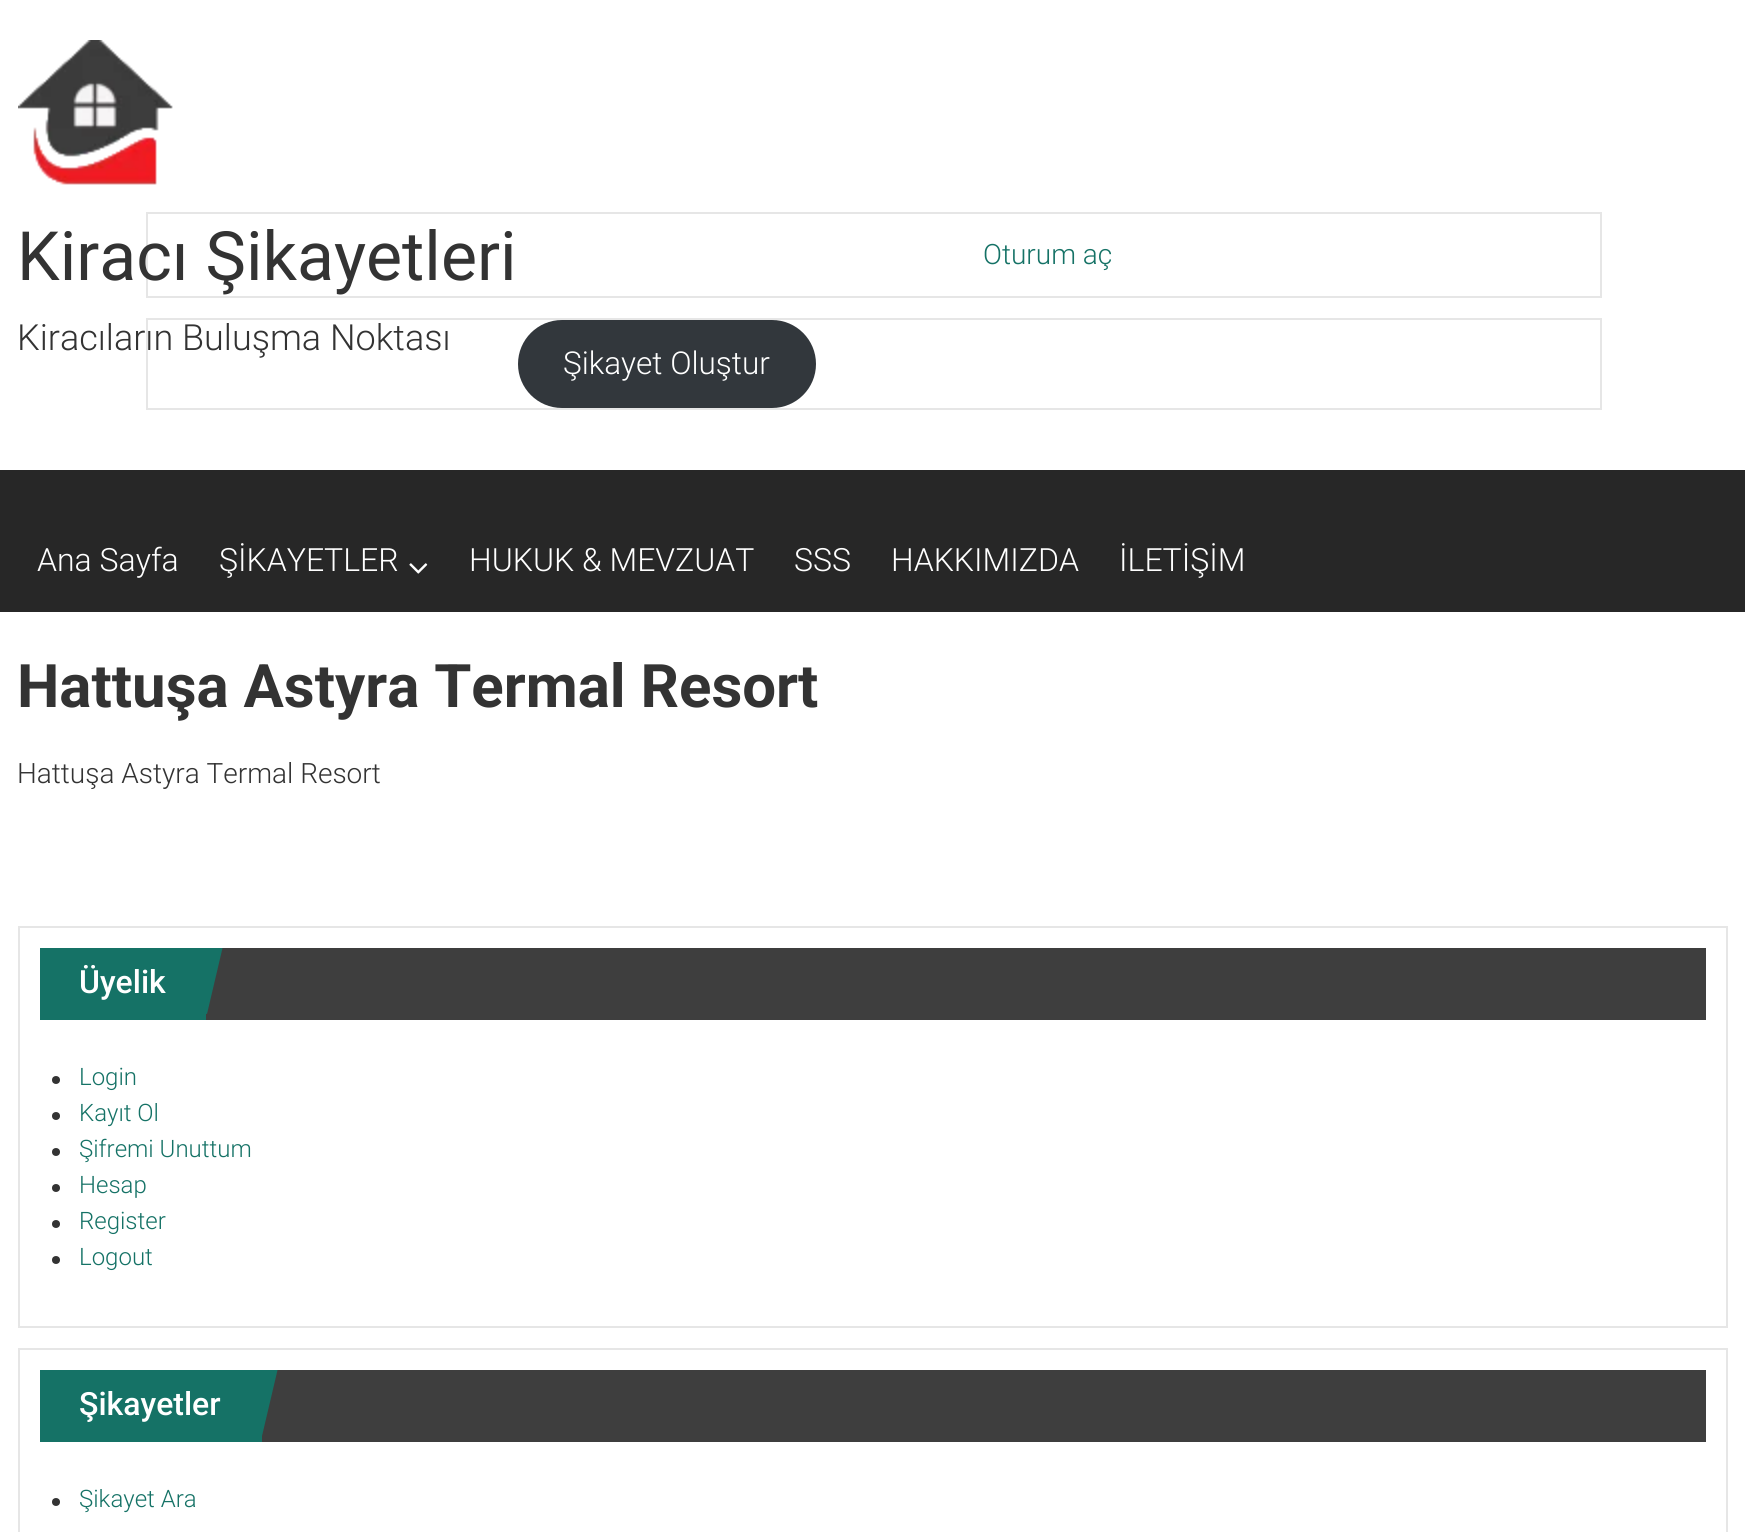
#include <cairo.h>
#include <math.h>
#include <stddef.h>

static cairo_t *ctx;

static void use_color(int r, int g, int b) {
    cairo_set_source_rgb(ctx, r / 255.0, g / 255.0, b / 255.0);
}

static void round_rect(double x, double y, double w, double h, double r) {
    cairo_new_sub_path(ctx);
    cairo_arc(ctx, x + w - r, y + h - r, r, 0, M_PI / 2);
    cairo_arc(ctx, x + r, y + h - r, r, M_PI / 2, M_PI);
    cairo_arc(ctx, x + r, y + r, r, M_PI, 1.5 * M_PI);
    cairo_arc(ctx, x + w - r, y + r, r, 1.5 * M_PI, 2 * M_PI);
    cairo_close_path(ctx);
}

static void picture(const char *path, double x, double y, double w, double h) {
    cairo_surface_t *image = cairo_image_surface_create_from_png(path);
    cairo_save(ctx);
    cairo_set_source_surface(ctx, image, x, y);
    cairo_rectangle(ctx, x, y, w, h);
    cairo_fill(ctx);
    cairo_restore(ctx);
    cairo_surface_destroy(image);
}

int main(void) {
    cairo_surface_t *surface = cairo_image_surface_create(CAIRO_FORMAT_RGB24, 1745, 1532);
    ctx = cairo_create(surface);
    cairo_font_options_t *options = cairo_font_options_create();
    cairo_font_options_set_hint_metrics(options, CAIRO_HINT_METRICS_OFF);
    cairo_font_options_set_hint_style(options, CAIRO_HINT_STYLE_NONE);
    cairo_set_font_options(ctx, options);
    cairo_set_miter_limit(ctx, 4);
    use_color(255, 255, 255);
    cairo_paint(ctx);
    picture("img1.png", 18, 40, 155, 145);
    cairo_rectangle(ctx, 147, 213, 1454, 84);
    use_color(230, 230, 230);
    cairo_stroke(ctx);
    cairo_select_font_face(ctx, "Roboto", CAIRO_FONT_SLANT_NORMAL, CAIRO_FONT_WEIGHT_NORMAL);
    cairo_set_font_size(ctx, 68);
    use_color(51, 51, 51);
    cairo_move_to(ctx, 17, 280);
    cairo_show_text(ctx, "Kiracı Şikayetleri");
    cairo_rectangle(ctx, 147, 319, 1454, 90);
    use_color(230, 230, 230);
    cairo_stroke(ctx);
    cairo_select_font_face(ctx, "Roboto Light", CAIRO_FONT_SLANT_NORMAL, CAIRO_FONT_WEIGHT_NORMAL);
    cairo_set_font_size(ctx, 36);
    use_color(51, 51, 51);
    cairo_move_to(ctx, 17, 350);
    cairo_show_text(ctx, "Kiracıların Buluşma Noktası");
    cairo_set_font_size(ctx, 28);
    use_color(21, 114, 102);
    cairo_move_to(ctx, 983, 264);
    cairo_show_text(ctx, "Oturum aç");
    use_color(50, 55, 60);
    round_rect(518, 320, 298, 88, 44);
    cairo_fill(ctx);
    cairo_set_font_size(ctx, 31.5);
    use_color(255, 255, 255);
    cairo_move_to(ctx, 563, 374);
    cairo_show_text(ctx, "Şikayet Oluştur");
    use_color(39, 39, 39);
    cairo_rectangle(ctx, 0, 470, 1745, 142);
    cairo_fill(ctx);
    cairo_set_font_size(ctx, 32);
    use_color(255, 255, 255);
    cairo_move_to(ctx, 37, 571);
    cairo_show_text(ctx, "Ana Sayfa");
    cairo_move_to(ctx, 219, 571);
    cairo_show_text(ctx, "ŞİKAYETLER");
    picture("img2.png", 409, 563, 19, 11);
    cairo_move_to(ctx, 469, 571);
    cairo_show_text(ctx, "HUKUK & MEVZUAT");
    cairo_move_to(ctx, 794, 571);
    cairo_show_text(ctx, "SSS");
    cairo_move_to(ctx, 891, 571);
    cairo_show_text(ctx, "HAKKIMIZDA");
    cairo_move_to(ctx, 1119, 571);
    cairo_show_text(ctx, "İLETİŞİM");
    cairo_select_font_face(ctx, "Roboto", CAIRO_FONT_SLANT_NORMAL, CAIRO_FONT_WEIGHT_BOLD);
    cairo_set_font_size(ctx, 60);
    use_color(51, 51, 51);
    cairo_move_to(ctx, 17, 707);
    cairo_show_text(ctx, "Hattuşa Astyra Termal Resort");
    cairo_select_font_face(ctx, "Roboto Light", CAIRO_FONT_SLANT_NORMAL, CAIRO_FONT_WEIGHT_NORMAL);
    cairo_set_font_size(ctx, 28);
    cairo_move_to(ctx, 17, 783);
    cairo_show_text(ctx, "Hattuşa Astyra Termal Resort");
    cairo_rectangle(ctx, 19, 927, 1708, 400);
    use_color(230, 230, 230);
    cairo_stroke(ctx);
    use_color(62, 62, 62);
    cairo_rectangle(ctx, 206, 948, 1500, 72);
    cairo_fill(ctx);
    use_color(21, 114, 102);
    cairo_rectangle(ctx, 40, 948, 166, 72);
    cairo_fill(ctx);
    cairo_save(ctx);
    cairo_rectangle(ctx, 40, 948, 1666, 72);
    cairo_clip(ctx);
    cairo_new_path(ctx);
    cairo_move_to(ctx, 223, 946);
    cairo_line_to(ctx, 207, 1014);
    cairo_line_to(ctx, 139, 998);
    cairo_line_to(ctx, 155, 930);
    cairo_close_path(ctx);
    cairo_fill(ctx);
    cairo_restore(ctx);
    cairo_select_font_face(ctx, "Roboto Medium", CAIRO_FONT_SLANT_NORMAL, CAIRO_FONT_WEIGHT_NORMAL);
    cairo_set_font_size(ctx, 32);
    use_color(255, 255, 255);
    cairo_move_to(ctx, 79, 993);
    cairo_show_text(ctx, "Üyelik");
    use_color(51, 51, 51);
    cairo_new_path(ctx);
    cairo_arc(ctx, 56, 1080, 4, 0, 2 * M_PI);
    cairo_fill(ctx);
    cairo_select_font_face(ctx, "Roboto Light", CAIRO_FONT_SLANT_NORMAL, CAIRO_FONT_WEIGHT_NORMAL);
    cairo_set_font_size(ctx, 24);
    use_color(21, 114, 102);
    cairo_move_to(ctx, 79, 1085);
    cairo_show_text(ctx, "Login");
    use_color(51, 51, 51);
    cairo_new_path(ctx);
    cairo_arc(ctx, 56, 1116, 4, 0, 2 * M_PI);
    cairo_fill(ctx);
    use_color(21, 114, 102);
    cairo_move_to(ctx, 79, 1121);
    cairo_show_text(ctx, "Kayıt Ol");
    use_color(51, 51, 51);
    cairo_new_path(ctx);
    cairo_arc(ctx, 56, 1152, 4, 0, 2 * M_PI);
    cairo_fill(ctx);
    use_color(21, 114, 102);
    cairo_move_to(ctx, 79, 1157);
    cairo_show_text(ctx, "Şifremi Unuttum");
    use_color(51, 51, 51);
    cairo_new_path(ctx);
    cairo_arc(ctx, 56, 1188, 4, 0, 2 * M_PI);
    cairo_fill(ctx);
    use_color(21, 114, 102);
    cairo_move_to(ctx, 79, 1193);
    cairo_show_text(ctx, "Hesap");
    use_color(51, 51, 51);
    cairo_new_path(ctx);
    cairo_arc(ctx, 56, 1224, 4, 0, 2 * M_PI);
    cairo_fill(ctx);
    use_color(21, 114, 102);
    cairo_move_to(ctx, 79, 1229);
    cairo_show_text(ctx, "Register");
    use_color(51, 51, 51);
    cairo_new_path(ctx);
    cairo_arc(ctx, 56, 1260, 4, 0, 2 * M_PI);
    cairo_fill(ctx);
    use_color(21, 114, 102);
    cairo_move_to(ctx, 79, 1265);
    cairo_show_text(ctx, "Logout");
    cairo_rectangle(ctx, 19, 1349, 1708, 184);
    use_color(230, 230, 230);
    cairo_stroke(ctx);
    use_color(62, 62, 62);
    cairo_rectangle(ctx, 262, 1370, 1444, 72);
    cairo_fill(ctx);
    use_color(21, 114, 102);
    cairo_rectangle(ctx, 40, 1370, 222, 72);
    cairo_fill(ctx);
    cairo_save(ctx);
    cairo_rectangle(ctx, 40, 1370, 1666, 72);
    cairo_clip(ctx);
    cairo_new_path(ctx);
    cairo_move_to(ctx, 278, 1368);
    cairo_line_to(ctx, 262, 1436);
    cairo_line_to(ctx, 194, 1420);
    cairo_line_to(ctx, 210, 1352);
    cairo_close_path(ctx);
    cairo_fill(ctx);
    cairo_restore(ctx);
    cairo_select_font_face(ctx, "Roboto Medium", CAIRO_FONT_SLANT_NORMAL, CAIRO_FONT_WEIGHT_NORMAL);
    cairo_set_font_size(ctx, 32);
    use_color(255, 255, 255);
    cairo_move_to(ctx, 79, 1415);
    cairo_show_text(ctx, "Şikayetler");
    use_color(51, 51, 51);
    cairo_new_path(ctx);
    cairo_arc(ctx, 56, 1502, 4, 0, 2 * M_PI);
    cairo_fill(ctx);
    cairo_select_font_face(ctx, "Roboto Light", CAIRO_FONT_SLANT_NORMAL, CAIRO_FONT_WEIGHT_NORMAL);
    cairo_set_font_size(ctx, 24);
    use_color(21, 114, 102);
    cairo_move_to(ctx, 79, 1507);
    cairo_show_text(ctx, "Şikayet Ara");
    cairo_surface_write_to_png(surface, "result.png");
    cairo_font_options_destroy(options);
    cairo_destroy(ctx);
    cairo_surface_destroy(surface);
    return 0;
}
